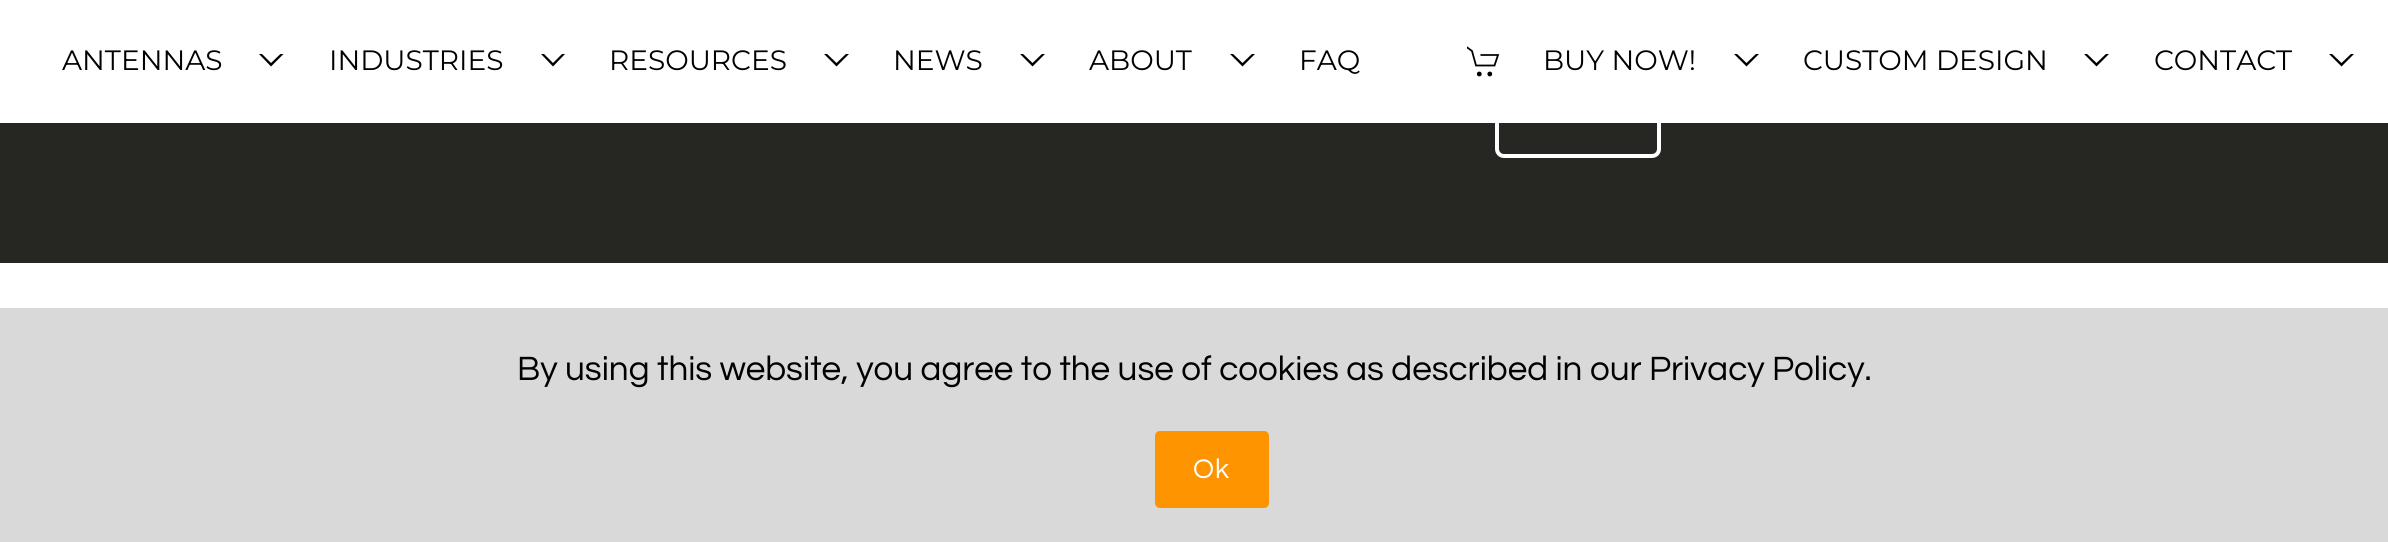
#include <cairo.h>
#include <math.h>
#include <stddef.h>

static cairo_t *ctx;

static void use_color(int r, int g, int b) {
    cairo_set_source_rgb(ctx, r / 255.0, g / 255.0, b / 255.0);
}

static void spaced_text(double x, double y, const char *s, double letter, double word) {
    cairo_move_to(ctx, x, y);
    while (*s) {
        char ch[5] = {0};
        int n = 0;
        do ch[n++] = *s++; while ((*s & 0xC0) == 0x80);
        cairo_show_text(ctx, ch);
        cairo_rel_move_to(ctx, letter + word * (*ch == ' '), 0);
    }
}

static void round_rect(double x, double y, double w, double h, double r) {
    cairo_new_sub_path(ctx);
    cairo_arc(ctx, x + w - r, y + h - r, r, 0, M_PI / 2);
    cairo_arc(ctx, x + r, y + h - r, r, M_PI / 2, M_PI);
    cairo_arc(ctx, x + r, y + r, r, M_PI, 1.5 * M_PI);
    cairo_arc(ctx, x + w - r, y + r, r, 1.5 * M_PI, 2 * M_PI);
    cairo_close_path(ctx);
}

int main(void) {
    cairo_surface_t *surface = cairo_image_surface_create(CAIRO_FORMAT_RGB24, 2388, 542);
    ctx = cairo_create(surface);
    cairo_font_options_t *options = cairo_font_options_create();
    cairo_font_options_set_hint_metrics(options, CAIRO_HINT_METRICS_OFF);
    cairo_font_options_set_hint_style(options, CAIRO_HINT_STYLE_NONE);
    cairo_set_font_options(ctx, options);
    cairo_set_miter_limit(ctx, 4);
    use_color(255, 255, 255);
    cairo_paint(ctx);
    cairo_select_font_face(ctx, "Montserrat Thin", CAIRO_FONT_SLANT_NORMAL, CAIRO_FONT_WEIGHT_NORMAL);
    cairo_set_font_size(ctx, 28);
    use_color(0, 0, 0);
    cairo_move_to(ctx, 62, 70);
    cairo_show_text(ctx, "ANTENNAS");
    cairo_new_path(ctx);
    cairo_move_to(ctx, 259, 54);
    cairo_line_to(ctx, 283.5, 54);
    cairo_line_to(ctx, 271, 66.5);
    cairo_close_path(ctx);
    cairo_fill(ctx);
    use_color(255, 255, 255);
    cairo_new_path(ctx);
    cairo_move_to(ctx, 259, 51);
    cairo_line_to(ctx, 283.5, 51);
    cairo_line_to(ctx, 271, 63);
    cairo_close_path(ctx);
    cairo_fill(ctx);
    use_color(0, 0, 0);
    cairo_move_to(ctx, 329, 70);
    cairo_show_text(ctx, "INDUSTRIES");
    cairo_new_path(ctx);
    cairo_move_to(ctx, 541, 54);
    cairo_line_to(ctx, 565, 54);
    cairo_line_to(ctx, 553, 66.5);
    cairo_close_path(ctx);
    cairo_fill(ctx);
    use_color(255, 255, 255);
    cairo_new_path(ctx);
    cairo_move_to(ctx, 541, 51);
    cairo_line_to(ctx, 565, 51);
    cairo_line_to(ctx, 553, 63);
    cairo_close_path(ctx);
    cairo_fill(ctx);
    use_color(0, 0, 0);
    cairo_move_to(ctx, 609, 70);
    cairo_show_text(ctx, "RESOURCES");
    cairo_new_path(ctx);
    cairo_move_to(ctx, 824, 54);
    cairo_line_to(ctx, 849, 54);
    cairo_line_to(ctx, 836.5, 66.5);
    cairo_close_path(ctx);
    cairo_fill(ctx);
    use_color(255, 255, 255);
    cairo_new_path(ctx);
    cairo_move_to(ctx, 824, 51);
    cairo_line_to(ctx, 849, 51);
    cairo_line_to(ctx, 836.5, 63);
    cairo_close_path(ctx);
    cairo_fill(ctx);
    use_color(0, 0, 0);
    cairo_move_to(ctx, 893, 70);
    cairo_show_text(ctx, "NEWS");
    cairo_new_path(ctx);
    cairo_move_to(ctx, 1020, 54);
    cairo_line_to(ctx, 1045, 54);
    cairo_line_to(ctx, 1032.5, 66.5);
    cairo_close_path(ctx);
    cairo_fill(ctx);
    use_color(255, 255, 255);
    cairo_new_path(ctx);
    cairo_move_to(ctx, 1020, 51);
    cairo_line_to(ctx, 1045, 51);
    cairo_line_to(ctx, 1032.5, 63);
    cairo_close_path(ctx);
    cairo_fill(ctx);
    use_color(0, 0, 0);
    cairo_move_to(ctx, 1089, 70);
    cairo_show_text(ctx, "ABOUT");
    cairo_new_path(ctx);
    cairo_move_to(ctx, 1230, 54);
    cairo_line_to(ctx, 1255, 54);
    cairo_line_to(ctx, 1242.5, 66.5);
    cairo_close_path(ctx);
    cairo_fill(ctx);
    use_color(255, 255, 255);
    cairo_new_path(ctx);
    cairo_move_to(ctx, 1230, 51);
    cairo_line_to(ctx, 1255, 51);
    cairo_line_to(ctx, 1242.5, 63);
    cairo_close_path(ctx);
    cairo_fill(ctx);
    use_color(0, 0, 0);
    cairo_move_to(ctx, 1299, 70);
    cairo_show_text(ctx, "FAQ");
    cairo_save(ctx);
    cairo_rectangle(ctx, 1467, 44, 35, 35);
    cairo_clip(ctx);
    cairo_new_path(ctx);
    cairo_move_to(ctx, 1466.5, 47);
    cairo_line_to(ctx, 1472, 51);
    cairo_line_to(ctx, 1476, 65.5);
    cairo_line_to(ctx, 1494.5, 65.5);
    cairo_line_to(ctx, 1498, 55);
    cairo_line_to(ctx, 1480.5, 55);
    cairo_set_line_width(ctx, 1.8);
    cairo_stroke(ctx);
    cairo_restore(ctx);
    cairo_arc(ctx, 1479.3, 74, 2.4, 0, 2 * M_PI);
    cairo_fill(ctx);
    cairo_arc(ctx, 1489.8, 74, 2.4, 0, 2 * M_PI);
    cairo_fill(ctx);
    cairo_move_to(ctx, 1543, 70);
    cairo_show_text(ctx, "BUY NOW!");
    cairo_new_path(ctx);
    cairo_move_to(ctx, 1734, 54);
    cairo_line_to(ctx, 1759, 54);
    cairo_line_to(ctx, 1746.5, 66.5);
    cairo_close_path(ctx);
    cairo_fill(ctx);
    use_color(255, 255, 255);
    cairo_new_path(ctx);
    cairo_move_to(ctx, 1734, 51);
    cairo_line_to(ctx, 1759, 51);
    cairo_line_to(ctx, 1746.5, 63);
    cairo_close_path(ctx);
    cairo_fill(ctx);
    use_color(0, 0, 0);
    cairo_move_to(ctx, 1803, 70);
    cairo_show_text(ctx, "CUSTOM DESIGN");
    cairo_new_path(ctx);
    cairo_move_to(ctx, 2084, 54);
    cairo_line_to(ctx, 2109, 54);
    cairo_line_to(ctx, 2096.5, 66.5);
    cairo_close_path(ctx);
    cairo_fill(ctx);
    use_color(255, 255, 255);
    cairo_new_path(ctx);
    cairo_move_to(ctx, 2084, 51);
    cairo_line_to(ctx, 2109, 51);
    cairo_line_to(ctx, 2096.5, 63);
    cairo_close_path(ctx);
    cairo_fill(ctx);
    use_color(0, 0, 0);
    cairo_move_to(ctx, 2154, 70);
    cairo_show_text(ctx, "CONTACT");
    cairo_new_path(ctx);
    cairo_move_to(ctx, 2329, 54);
    cairo_line_to(ctx, 2354, 54);
    cairo_line_to(ctx, 2341.5, 66.5);
    cairo_close_path(ctx);
    cairo_fill(ctx);
    use_color(255, 255, 255);
    cairo_new_path(ctx);
    cairo_move_to(ctx, 2329, 51);
    cairo_line_to(ctx, 2354, 51);
    cairo_line_to(ctx, 2341.5, 63);
    cairo_close_path(ctx);
    cairo_fill(ctx);
    use_color(38, 38, 35);
    cairo_rectangle(ctx, 0, 123, 2388, 140);
    cairo_fill(ctx);
    round_rect(1497, 76, 162, 80, 7);
    use_color(255, 255, 255);
    cairo_set_line_width(ctx, 4);
    cairo_stroke(ctx);
    use_color(217, 217, 217);
    cairo_rectangle(ctx, 0, 308, 2388, 234);
    cairo_fill(ctx);
    cairo_select_font_face(ctx, "Questrial", CAIRO_FONT_SLANT_NORMAL, CAIRO_FONT_WEIGHT_NORMAL);
    cairo_set_font_size(ctx, 35);
    use_color(0, 0, 0);
    cairo_move_to(ctx, 517, 380);
    cairo_show_text(ctx, "By using this website, you agree to the use of cookies as described in our Privacy Policy.");
    use_color(253, 148, 0);
    round_rect(1155, 431, 114, 77, 5);
    cairo_fill(ctx);
    cairo_set_font_size(ctx, 28);
    use_color(255, 255, 255);
    spaced_text(1193, 478, "Ok", 1, 0);
    cairo_surface_write_to_png(surface, "result.png");
    cairo_font_options_destroy(options);
    cairo_destroy(ctx);
    cairo_surface_destroy(surface);
    return 0;
}
